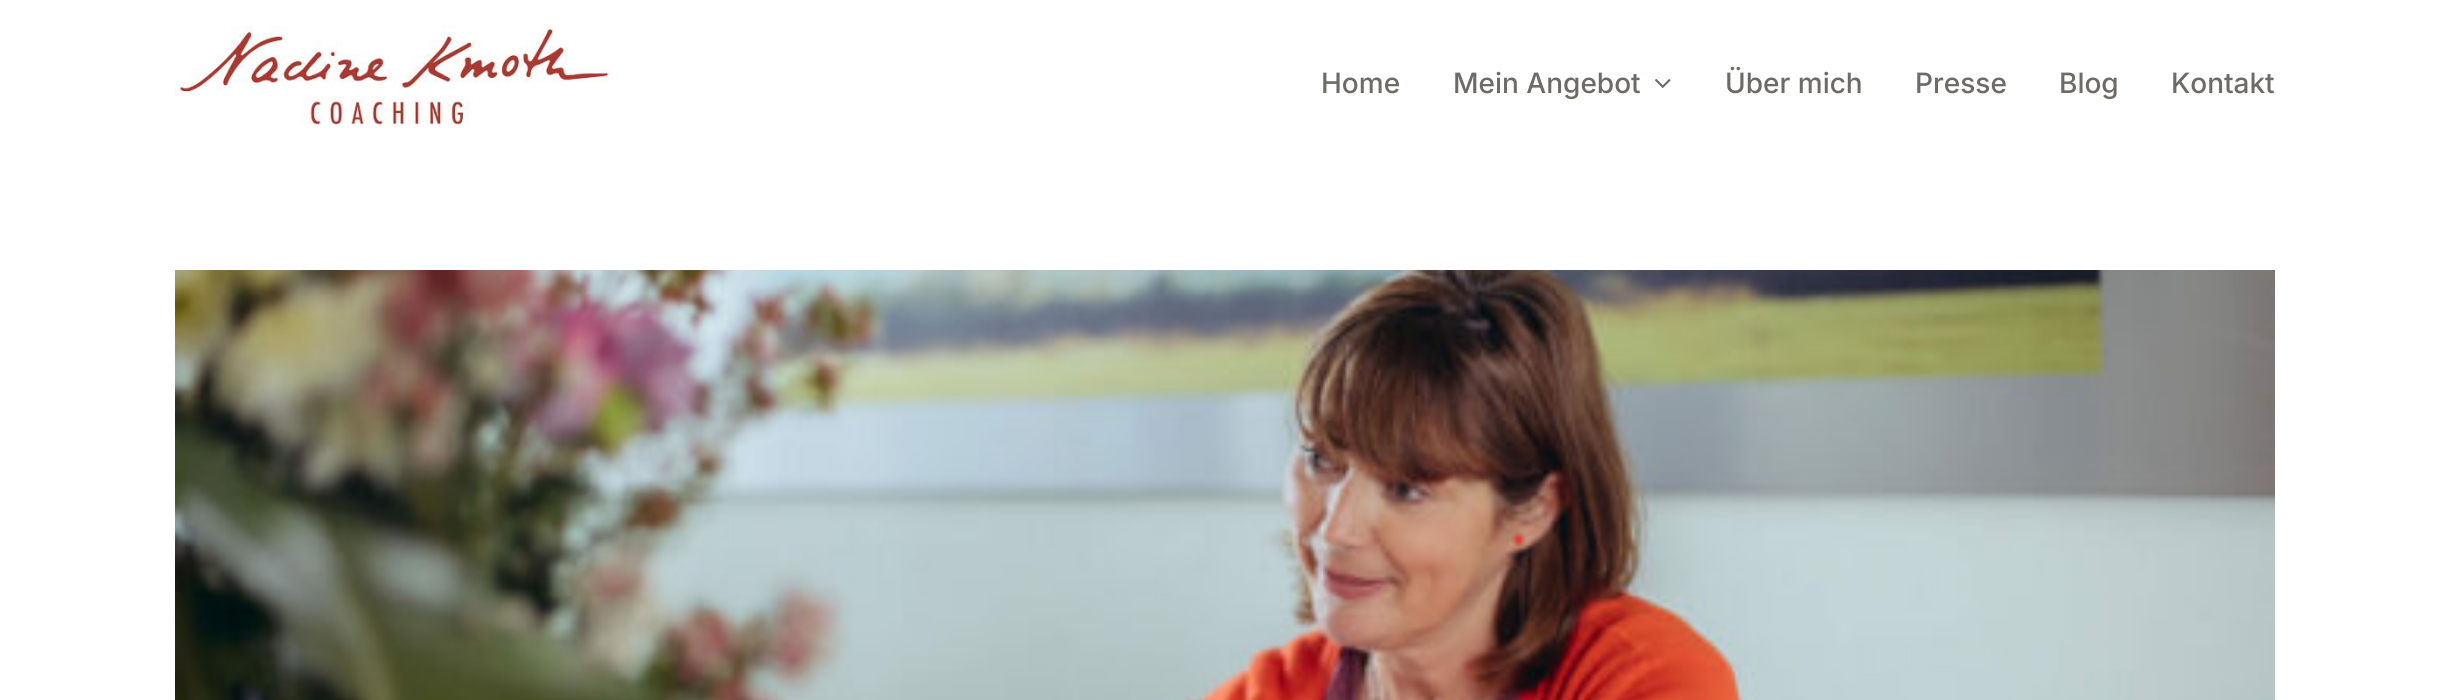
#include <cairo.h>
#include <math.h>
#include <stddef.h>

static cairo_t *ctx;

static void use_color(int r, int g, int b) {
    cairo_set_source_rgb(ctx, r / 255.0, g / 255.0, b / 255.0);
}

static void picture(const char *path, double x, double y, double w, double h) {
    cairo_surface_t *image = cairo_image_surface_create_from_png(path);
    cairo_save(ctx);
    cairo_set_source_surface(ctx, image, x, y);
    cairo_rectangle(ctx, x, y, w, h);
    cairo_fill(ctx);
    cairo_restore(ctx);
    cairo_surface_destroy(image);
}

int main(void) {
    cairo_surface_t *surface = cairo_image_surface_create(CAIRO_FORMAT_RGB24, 2449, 700);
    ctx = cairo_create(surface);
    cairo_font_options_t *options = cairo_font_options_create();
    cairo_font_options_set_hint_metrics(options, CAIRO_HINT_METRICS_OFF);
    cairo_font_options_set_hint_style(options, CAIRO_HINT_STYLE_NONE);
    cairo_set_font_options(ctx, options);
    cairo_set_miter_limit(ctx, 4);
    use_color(255, 255, 255);
    cairo_paint(ctx);
    picture("img1.png", 175, 26, 434, 99);
    cairo_select_font_face(ctx, "Inter Medium", CAIRO_FONT_SLANT_NORMAL, CAIRO_FONT_WEIGHT_NORMAL);
    cairo_set_font_size(ctx, 28);
    use_color(110, 107, 102);
    cairo_move_to(ctx, 1321, 93);
    cairo_show_text(ctx, "Home");
    cairo_move_to(ctx, 1453, 93);
    cairo_show_text(ctx, "Mein Angebot");
    picture("img2.png", 1655, 79, 16, 9);
    cairo_move_to(ctx, 1725, 93);
    cairo_show_text(ctx, "Über mich");
    cairo_move_to(ctx, 1915, 93);
    cairo_show_text(ctx, "Presse");
    cairo_move_to(ctx, 2059, 93);
    cairo_show_text(ctx, "Blog");
    cairo_move_to(ctx, 2171, 93);
    cairo_show_text(ctx, "Kontakt");
    picture("img3.png", 175, 270, 2100, 430);
    cairo_surface_write_to_png(surface, "result.png");
    cairo_font_options_destroy(options);
    cairo_destroy(ctx);
    cairo_surface_destroy(surface);
    return 0;
}
